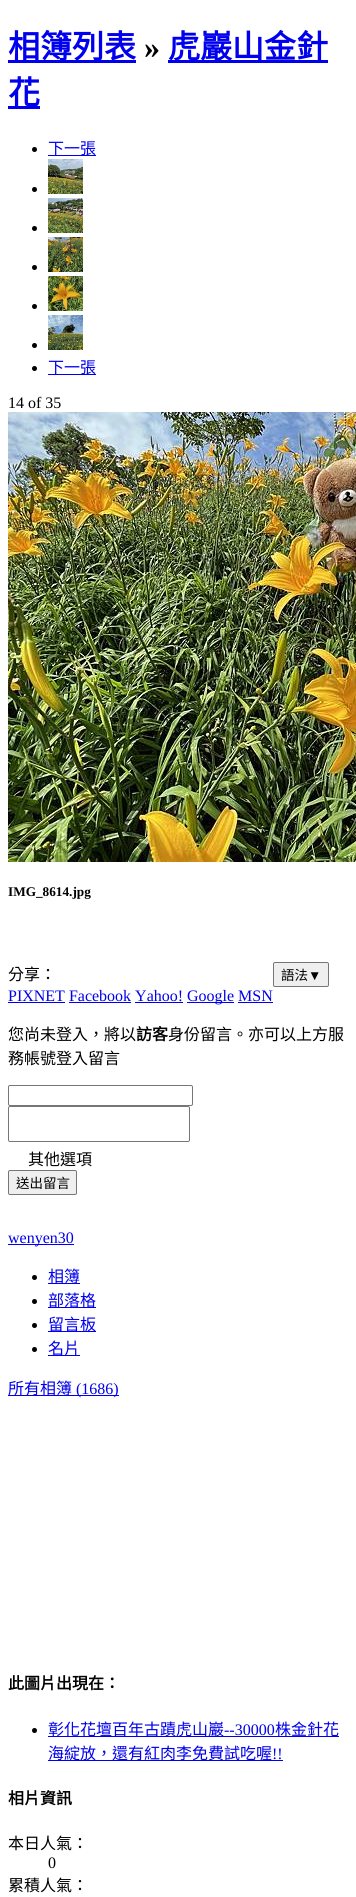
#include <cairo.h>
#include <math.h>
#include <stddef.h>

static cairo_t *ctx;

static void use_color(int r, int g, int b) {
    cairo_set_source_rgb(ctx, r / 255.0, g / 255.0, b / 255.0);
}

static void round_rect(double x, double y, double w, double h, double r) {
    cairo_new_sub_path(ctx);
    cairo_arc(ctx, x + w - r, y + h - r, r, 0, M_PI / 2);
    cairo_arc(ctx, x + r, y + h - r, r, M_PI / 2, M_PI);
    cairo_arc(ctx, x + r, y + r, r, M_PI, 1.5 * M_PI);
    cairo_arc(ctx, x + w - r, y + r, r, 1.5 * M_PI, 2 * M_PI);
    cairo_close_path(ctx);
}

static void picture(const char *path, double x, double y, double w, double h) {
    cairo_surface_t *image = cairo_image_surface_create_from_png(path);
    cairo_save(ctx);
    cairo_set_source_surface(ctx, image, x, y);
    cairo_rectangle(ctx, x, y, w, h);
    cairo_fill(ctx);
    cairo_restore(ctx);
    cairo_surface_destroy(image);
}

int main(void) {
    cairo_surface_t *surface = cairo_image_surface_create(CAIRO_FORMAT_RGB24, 356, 1897);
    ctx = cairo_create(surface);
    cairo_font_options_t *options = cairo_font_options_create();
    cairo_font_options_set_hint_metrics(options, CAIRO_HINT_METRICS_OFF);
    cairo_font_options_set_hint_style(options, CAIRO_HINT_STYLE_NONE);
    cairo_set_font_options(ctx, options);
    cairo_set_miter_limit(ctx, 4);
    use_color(255, 255, 255);
    cairo_paint(ctx);
    use_color(0, 0, 238);
    cairo_rectangle(ctx, 8, 60, 128, 3);
    cairo_fill(ctx);
    cairo_select_font_face(ctx, "Noto Sans CJK TC", CAIRO_FONT_SLANT_NORMAL, CAIRO_FONT_WEIGHT_BOLD);
    cairo_set_font_size(ctx, 32);
    cairo_move_to(ctx, 8, 58);
    cairo_show_text(ctx, "相簿列表");
    cairo_select_font_face(ctx, "Liberation Serif", CAIRO_FONT_SLANT_NORMAL, CAIRO_FONT_WEIGHT_BOLD);
    use_color(0, 0, 0);
    cairo_move_to(ctx, 144, 58);
    cairo_show_text(ctx, "»");
    use_color(0, 0, 238);
    cairo_rectangle(ctx, 168, 60, 160, 3);
    cairo_fill(ctx);
    cairo_select_font_face(ctx, "Noto Sans CJK TC", CAIRO_FONT_SLANT_NORMAL, CAIRO_FONT_WEIGHT_BOLD);
    cairo_move_to(ctx, 168, 58);
    cairo_show_text(ctx, "虎巖山金針");
    cairo_rectangle(ctx, 8, 106, 32, 3);
    cairo_fill(ctx);
    cairo_move_to(ctx, 8, 104);
    cairo_show_text(ctx, "花");
    use_color(0, 0, 0);
    cairo_new_path(ctx);
    cairo_arc(ctx, 34.5, 149.5, 2.5, 0, 2 * M_PI);
    cairo_fill(ctx);
    use_color(0, 0, 238);
    cairo_rectangle(ctx, 48, 155, 48, 1);
    cairo_fill(ctx);
    cairo_select_font_face(ctx, "Noto Sans CJK TC", CAIRO_FONT_SLANT_NORMAL, CAIRO_FONT_WEIGHT_NORMAL);
    cairo_set_font_size(ctx, 16);
    cairo_move_to(ctx, 48, 154);
    cairo_show_text(ctx, "下一張");
    use_color(0, 0, 0);
    cairo_new_path(ctx);
    cairo_arc(ctx, 34.5, 189.5, 2.5, 0, 2 * M_PI);
    cairo_fill(ctx);
    picture("img1.png", 48, 159, 35, 35);
    cairo_arc(ctx, 34.5, 228.5, 2.5, 0, 2 * M_PI);
    cairo_fill(ctx);
    picture("img2.png", 48, 198, 35, 35);
    cairo_arc(ctx, 34.5, 267.5, 2.5, 0, 2 * M_PI);
    cairo_fill(ctx);
    picture("img3.png", 48, 237, 35, 35);
    cairo_arc(ctx, 34.5, 306.5, 2.5, 0, 2 * M_PI);
    cairo_fill(ctx);
    picture("img4.png", 48, 276, 35, 35);
    cairo_arc(ctx, 34.5, 345.5, 2.5, 0, 2 * M_PI);
    cairo_fill(ctx);
    picture("img5.png", 48, 315, 35, 35);
    cairo_arc(ctx, 34.5, 368.5, 2.5, 0, 2 * M_PI);
    cairo_fill(ctx);
    use_color(0, 0, 238);
    cairo_rectangle(ctx, 48, 374, 48, 1);
    cairo_fill(ctx);
    cairo_move_to(ctx, 48, 373);
    cairo_show_text(ctx, "下一張");
    cairo_select_font_face(ctx, "Liberation Serif", CAIRO_FONT_SLANT_NORMAL, CAIRO_FONT_WEIGHT_NORMAL);
    use_color(0, 0, 0);
    cairo_move_to(ctx, 8, 408);
    cairo_show_text(ctx, "14 of 35");
    picture("img6.png", 8, 412, 348, 450);
    cairo_select_font_face(ctx, "Liberation Serif", CAIRO_FONT_SLANT_NORMAL, CAIRO_FONT_WEIGHT_BOLD);
    cairo_set_font_size(ctx, 13.25);
    cairo_move_to(ctx, 8, 896);
    cairo_show_text(ctx, "IMG_8614.jpg");
    cairo_select_font_face(ctx, "Noto Sans CJK TC", CAIRO_FONT_SLANT_NORMAL, CAIRO_FONT_WEIGHT_NORMAL);
    cairo_set_font_size(ctx, 16);
    cairo_move_to(ctx, 8, 980);
    cairo_show_text(ctx, "分享：");
    use_color(239, 239, 239);
    round_rect(273.5, 962.5, 55, 24, 1.5);
    cairo_fill_preserve(ctx);
    use_color(118, 118, 118);
    cairo_set_line_width(ctx, 1);
    cairo_stroke(ctx);
    cairo_set_font_size(ctx, 13.5);
    use_color(0, 0, 0);
    cairo_move_to(ctx, 281, 980);
    cairo_show_text(ctx, "語法");
    cairo_select_font_face(ctx, "Liberation Sans", CAIRO_FONT_SLANT_NORMAL, CAIRO_FONT_WEIGHT_NORMAL);
    cairo_move_to(ctx, 308, 980);
    cairo_show_text(ctx, "▼");
    cairo_select_font_face(ctx, "Liberation Serif", CAIRO_FONT_SLANT_NORMAL, CAIRO_FONT_WEIGHT_NORMAL);
    cairo_set_font_size(ctx, 16);
    use_color(0, 0, 238);
    cairo_move_to(ctx, 8, 1001);
    cairo_show_text(ctx, "PIXNET Facebook Yahoo!");
    cairo_rectangle(ctx, 8, 1002, 57, 1);
    cairo_fill(ctx);
    cairo_rectangle(ctx, 187, 1002, 47, 1);
    cairo_fill(ctx);
    cairo_move_to(ctx, 187, 1001);
    cairo_show_text(ctx, "Google MSN");
    cairo_rectangle(ctx, 69, 1002, 62, 1);
    cairo_fill(ctx);
    cairo_rectangle(ctx, 135, 1002, 48, 1);
    cairo_fill(ctx);
    cairo_rectangle(ctx, 238, 1002, 35, 1);
    cairo_fill(ctx);
    cairo_select_font_face(ctx, "Noto Sans CJK TC", CAIRO_FONT_SLANT_NORMAL, CAIRO_FONT_WEIGHT_NORMAL);
    use_color(0, 0, 0);
    cairo_move_to(ctx, 8, 1040);
    cairo_show_text(ctx, "您尚未登入，將以");
    cairo_select_font_face(ctx, "Noto Sans CJK TC", CAIRO_FONT_SLANT_NORMAL, CAIRO_FONT_WEIGHT_BOLD);
    cairo_move_to(ctx, 136, 1040);
    cairo_show_text(ctx, "訪客");
    cairo_select_font_face(ctx, "Noto Sans CJK TC", CAIRO_FONT_SLANT_NORMAL, CAIRO_FONT_WEIGHT_NORMAL);
    cairo_move_to(ctx, 168, 1040);
    cairo_show_text(ctx, "身份留言。亦可以上方服");
    cairo_move_to(ctx, 8, 1064);
    cairo_show_text(ctx, "務帳號登入留言");
    round_rect(8.5, 1085.5, 184, 20, 1.5);
    use_color(118, 118, 118);
    cairo_stroke(ctx);
    round_rect(8.5, 1106.5, 181, 35, 1.5);
    cairo_stroke(ctx);
    use_color(0, 0, 0);
    cairo_move_to(ctx, 28, 1165);
    cairo_show_text(ctx, "其他選項");
    use_color(239, 239, 239);
    round_rect(8.5, 1170.5, 68, 24, 1.5);
    cairo_fill_preserve(ctx);
    use_color(118, 118, 118);
    cairo_stroke(ctx);
    cairo_set_font_size(ctx, 13.5);
    use_color(0, 0, 0);
    cairo_move_to(ctx, 16, 1188);
    cairo_show_text(ctx, "送出留言");
    use_color(0, 0, 238);
    cairo_rectangle(ctx, 8, 1244, 66, 1);
    cairo_fill(ctx);
    cairo_select_font_face(ctx, "Liberation Serif", CAIRO_FONT_SLANT_NORMAL, CAIRO_FONT_WEIGHT_NORMAL);
    cairo_set_font_size(ctx, 16);
    cairo_move_to(ctx, 8, 1243);
    cairo_show_text(ctx, "wenyen30");
    use_color(0, 0, 0);
    cairo_new_path(ctx);
    cairo_arc(ctx, 34.5, 1277.5, 2.5, 0, 2 * M_PI);
    cairo_fill(ctx);
    use_color(0, 0, 238);
    cairo_rectangle(ctx, 48, 1283, 32, 1);
    cairo_fill(ctx);
    cairo_select_font_face(ctx, "Noto Sans CJK TC", CAIRO_FONT_SLANT_NORMAL, CAIRO_FONT_WEIGHT_NORMAL);
    cairo_move_to(ctx, 48, 1282);
    cairo_show_text(ctx, "相簿");
    use_color(0, 0, 0);
    cairo_new_path(ctx);
    cairo_arc(ctx, 34.5, 1301.5, 2.5, 0, 2 * M_PI);
    cairo_fill(ctx);
    use_color(0, 0, 238);
    cairo_rectangle(ctx, 48, 1307, 48, 1);
    cairo_fill(ctx);
    cairo_move_to(ctx, 48, 1306);
    cairo_show_text(ctx, "部落格");
    use_color(0, 0, 0);
    cairo_new_path(ctx);
    cairo_arc(ctx, 34.5, 1325.5, 2.5, 0, 2 * M_PI);
    cairo_fill(ctx);
    use_color(0, 0, 238);
    cairo_rectangle(ctx, 48, 1331, 48, 1);
    cairo_fill(ctx);
    cairo_move_to(ctx, 48, 1330);
    cairo_show_text(ctx, "留言板");
    use_color(0, 0, 0);
    cairo_new_path(ctx);
    cairo_arc(ctx, 34.5, 1349.5, 2.5, 0, 2 * M_PI);
    cairo_fill(ctx);
    use_color(0, 0, 238);
    cairo_rectangle(ctx, 48, 1355, 32, 1);
    cairo_fill(ctx);
    cairo_move_to(ctx, 48, 1354);
    cairo_show_text(ctx, "名片");
    cairo_rectangle(ctx, 8, 1395, 111, 1);
    cairo_fill(ctx);
    cairo_move_to(ctx, 8, 1394);
    cairo_show_text(ctx, "所有相簿");
    cairo_select_font_face(ctx, "Liberation Serif", CAIRO_FONT_SLANT_NORMAL, CAIRO_FONT_WEIGHT_NORMAL);
    cairo_move_to(ctx, 76, 1394);
    cairo_show_text(ctx, "(1686)");
    cairo_select_font_face(ctx, "Noto Sans CJK TC", CAIRO_FONT_SLANT_NORMAL, CAIRO_FONT_WEIGHT_BOLD);
    use_color(0, 0, 0);
    cairo_move_to(ctx, 8, 1689);
    cairo_show_text(ctx, "此圖片出現在：");
    cairo_new_path(ctx);
    cairo_arc(ctx, 34.5, 1730.5, 2.5, 0, 2 * M_PI);
    cairo_fill(ctx);
    use_color(0, 0, 238);
    cairo_rectangle(ctx, 48, 1736, 291, 1);
    cairo_fill(ctx);
    cairo_select_font_face(ctx, "Noto Sans CJK TC", CAIRO_FONT_SLANT_NORMAL, CAIRO_FONT_WEIGHT_NORMAL);
    cairo_move_to(ctx, 48, 1735);
    cairo_show_text(ctx, "彰化花壇百年古蹟虎山巖");
    cairo_select_font_face(ctx, "Liberation Serif", CAIRO_FONT_SLANT_NORMAL, CAIRO_FONT_WEIGHT_NORMAL);
    cairo_move_to(ctx, 224, 1735);
    cairo_show_text(ctx, "--30000");
    cairo_select_font_face(ctx, "Noto Sans CJK TC", CAIRO_FONT_SLANT_NORMAL, CAIRO_FONT_WEIGHT_NORMAL);
    cairo_move_to(ctx, 275, 1735);
    cairo_show_text(ctx, "株金針花");
    cairo_rectangle(ctx, 48, 1760, 235, 1);
    cairo_fill(ctx);
    cairo_move_to(ctx, 48, 1759);
    cairo_show_text(ctx, "海綻放，還有紅肉李免費試吃喔");
    cairo_select_font_face(ctx, "Liberation Serif", CAIRO_FONT_SLANT_NORMAL, CAIRO_FONT_WEIGHT_NORMAL);
    cairo_move_to(ctx, 272, 1759);
    cairo_show_text(ctx, "!!");
    cairo_select_font_face(ctx, "Noto Sans CJK TC", CAIRO_FONT_SLANT_NORMAL, CAIRO_FONT_WEIGHT_BOLD);
    use_color(0, 0, 0);
    cairo_move_to(ctx, 8, 1804);
    cairo_show_text(ctx, "相片資訊");
    cairo_select_font_face(ctx, "Noto Sans CJK TC", CAIRO_FONT_SLANT_NORMAL, CAIRO_FONT_WEIGHT_NORMAL);
    cairo_move_to(ctx, 8, 1849);
    cairo_show_text(ctx, "本日人氣：");
    cairo_select_font_face(ctx, "Liberation Serif", CAIRO_FONT_SLANT_NORMAL, CAIRO_FONT_WEIGHT_NORMAL);
    cairo_move_to(ctx, 48, 1868);
    cairo_show_text(ctx, "0");
    cairo_select_font_face(ctx, "Noto Sans CJK TC", CAIRO_FONT_SLANT_NORMAL, CAIRO_FONT_WEIGHT_NORMAL);
    cairo_move_to(ctx, 8, 1891);
    cairo_show_text(ctx, "累積人氣：");
    cairo_surface_write_to_png(surface, "result.png");
    cairo_font_options_destroy(options);
    cairo_destroy(ctx);
    cairo_surface_destroy(surface);
    return 0;
}
